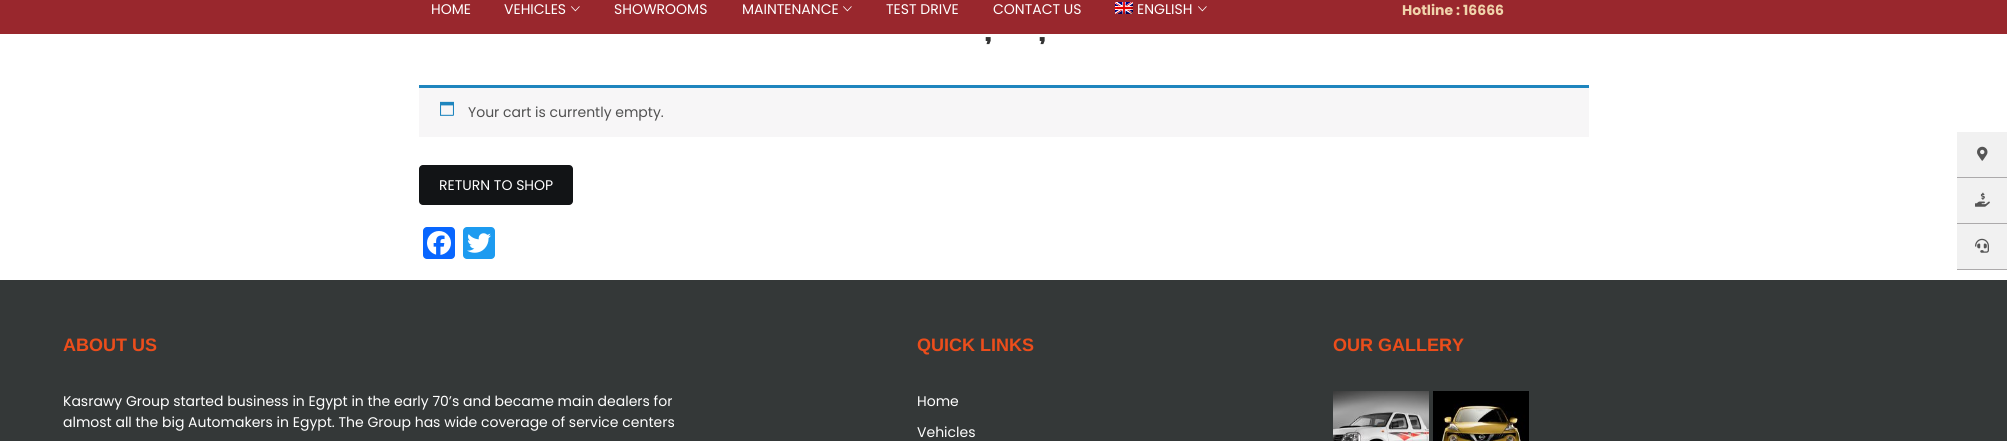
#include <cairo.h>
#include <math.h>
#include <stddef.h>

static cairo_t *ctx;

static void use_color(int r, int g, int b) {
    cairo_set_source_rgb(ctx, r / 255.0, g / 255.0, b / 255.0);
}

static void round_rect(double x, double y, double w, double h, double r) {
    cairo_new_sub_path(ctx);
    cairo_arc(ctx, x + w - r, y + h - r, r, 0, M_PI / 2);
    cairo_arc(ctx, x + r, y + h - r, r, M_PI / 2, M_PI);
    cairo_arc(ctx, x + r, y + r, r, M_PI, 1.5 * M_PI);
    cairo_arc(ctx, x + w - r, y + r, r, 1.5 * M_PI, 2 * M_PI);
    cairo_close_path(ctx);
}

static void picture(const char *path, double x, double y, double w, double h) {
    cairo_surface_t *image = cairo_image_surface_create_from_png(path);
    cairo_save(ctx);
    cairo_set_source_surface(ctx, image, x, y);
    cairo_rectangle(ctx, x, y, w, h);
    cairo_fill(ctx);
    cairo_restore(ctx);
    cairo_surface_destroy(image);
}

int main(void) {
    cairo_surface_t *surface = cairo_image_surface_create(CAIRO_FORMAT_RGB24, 2007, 441);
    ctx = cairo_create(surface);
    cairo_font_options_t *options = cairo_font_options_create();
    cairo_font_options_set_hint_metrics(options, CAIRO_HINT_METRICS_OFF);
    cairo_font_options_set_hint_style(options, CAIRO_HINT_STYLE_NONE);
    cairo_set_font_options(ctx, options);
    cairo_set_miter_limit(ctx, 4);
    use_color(255, 255, 255);
    cairo_paint(ctx);
    use_color(153, 39, 45);
    cairo_rectangle(ctx, 0, 0, 2007, 34);
    cairo_fill(ctx);
    cairo_select_font_face(ctx, "Poppins", CAIRO_FONT_SLANT_NORMAL, CAIRO_FONT_WEIGHT_NORMAL);
    cairo_set_font_size(ctx, 14);
    use_color(255, 255, 255);
    cairo_move_to(ctx, 431, 14);
    cairo_show_text(ctx, "HOME");
    cairo_move_to(ctx, 504, 14);
    cairo_show_text(ctx, "VEHICLES");
    picture("img1.png", 571, 6, 9, 6);
    cairo_move_to(ctx, 614, 14);
    cairo_show_text(ctx, "SHOWROOMS");
    cairo_move_to(ctx, 742, 14);
    cairo_show_text(ctx, "MAINTENANCE");
    picture("img1.png", 843, 6, 9, 6);
    cairo_move_to(ctx, 886, 14);
    cairo_show_text(ctx, "TEST DRIVE");
    cairo_move_to(ctx, 993, 14);
    cairo_show_text(ctx, "CONTACT US");
    picture("img2.png", 1115, 2, 18, 12);
    cairo_move_to(ctx, 1137, 14);
    cairo_show_text(ctx, "ENGLISH");
    picture("img1.png", 1198, 6, 9, 6);
    cairo_select_font_face(ctx, "Poppins", CAIRO_FONT_SLANT_NORMAL, CAIRO_FONT_WEIGHT_BOLD);
    use_color(240, 211, 171);
    cairo_move_to(ctx, 1402, 15);
    cairo_show_text(ctx, "Hotline : 16666");
    cairo_select_font_face(ctx, "Anton", CAIRO_FONT_SLANT_NORMAL, CAIRO_FONT_WEIGHT_NORMAL);
    cairo_set_font_size(ctx, 27);
    use_color(51, 51, 51);
    cairo_move_to(ctx, 985, 41);
    cairo_show_text(ctx, ",");
    cairo_move_to(ctx, 1039, 41);
    cairo_show_text(ctx, ",");
    use_color(247, 246, 247);
    cairo_rectangle(ctx, 419, 88, 1170, 49);
    cairo_fill(ctx);
    use_color(30, 133, 190);
    cairo_rectangle(ctx, 419, 85, 1170, 3);
    cairo_fill(ctx);
    picture("img3.png", 440, 101, 14, 15);
    cairo_select_font_face(ctx, "Poppins", CAIRO_FONT_SLANT_NORMAL, CAIRO_FONT_WEIGHT_NORMAL);
    cairo_set_font_size(ctx, 14);
    use_color(81, 81, 81);
    cairo_move_to(ctx, 468, 117);
    cairo_show_text(ctx, "Your cart is currently empty.");
    use_color(18, 20, 22);
    round_rect(419, 165, 154, 40, 4);
    cairo_fill(ctx);
    use_color(255, 255, 255);
    cairo_move_to(ctx, 439, 190);
    cairo_show_text(ctx, "RETURN TO SHOP");
    use_color(8, 102, 255);
    round_rect(423, 227, 32, 32, 4);
    cairo_fill(ctx);
    picture("img4.png", 427, 231, 24, 24);
    use_color(29, 155, 240);
    round_rect(463, 227, 32, 32, 4);
    cairo_fill(ctx);
    picture("img5.png", 467, 233, 24, 20);
    use_color(241, 241, 241);
    cairo_rectangle(ctx, 1957, 132, 50, 137);
    cairo_fill(ctx);
    use_color(172, 170, 171);
    cairo_rectangle(ctx, 1957, 177, 50, 1);
    cairo_fill(ctx);
    picture("img6.png", 1977, 146, 11, 15);
    cairo_rectangle(ctx, 1957, 223, 50, 1);
    cairo_fill(ctx);
    picture("img7.png", 1975, 192, 15, 15);
    cairo_rectangle(ctx, 1957, 269, 50, 1);
    cairo_fill(ctx);
    picture("img8.png", 1975, 238, 14, 15);
    use_color(52, 56, 56);
    cairo_rectangle(ctx, 0, 280, 2007, 161);
    cairo_fill(ctx);
    cairo_select_font_face(ctx, "Liberation Sans", CAIRO_FONT_SLANT_NORMAL, CAIRO_FONT_WEIGHT_BOLD);
    cairo_set_font_size(ctx, 18);
    use_color(236, 77, 27);
    cairo_move_to(ctx, 63, 351);
    cairo_show_text(ctx, "ABOUT US");
    cairo_select_font_face(ctx, "Poppins", CAIRO_FONT_SLANT_NORMAL, CAIRO_FONT_WEIGHT_NORMAL);
    cairo_set_font_size(ctx, 14);
    use_color(255, 255, 255);
    cairo_move_to(ctx, 63, 406);
    cairo_show_text(ctx, "Kasrawy Group started business in Egypt in the early 70’s and became main dealers for");
    cairo_move_to(ctx, 63, 427);
    cairo_show_text(ctx, "almost all the big Automakers in Egypt. The Group has wide coverage of service centers");
    cairo_select_font_face(ctx, "Liberation Sans", CAIRO_FONT_SLANT_NORMAL, CAIRO_FONT_WEIGHT_BOLD);
    cairo_set_font_size(ctx, 18);
    use_color(236, 77, 27);
    cairo_move_to(ctx, 917, 351);
    cairo_show_text(ctx, "QUICK LINKS");
    cairo_select_font_face(ctx, "Poppins", CAIRO_FONT_SLANT_NORMAL, CAIRO_FONT_WEIGHT_NORMAL);
    cairo_set_font_size(ctx, 14);
    use_color(255, 255, 255);
    cairo_move_to(ctx, 917, 406);
    cairo_show_text(ctx, "Home");
    cairo_move_to(ctx, 917, 437);
    cairo_show_text(ctx, "Vehicles");
    cairo_select_font_face(ctx, "Liberation Sans", CAIRO_FONT_SLANT_NORMAL, CAIRO_FONT_WEIGHT_BOLD);
    cairo_set_font_size(ctx, 18);
    use_color(236, 77, 27);
    cairo_move_to(ctx, 1333, 351);
    cairo_show_text(ctx, "OUR GALLERY");
    picture("img9.png", 1333, 391, 96, 50);
    picture("img10.png", 1433, 391, 96, 50);
    cairo_surface_write_to_png(surface, "result.png");
    cairo_font_options_destroy(options);
    cairo_destroy(ctx);
    cairo_surface_destroy(surface);
    return 0;
}
